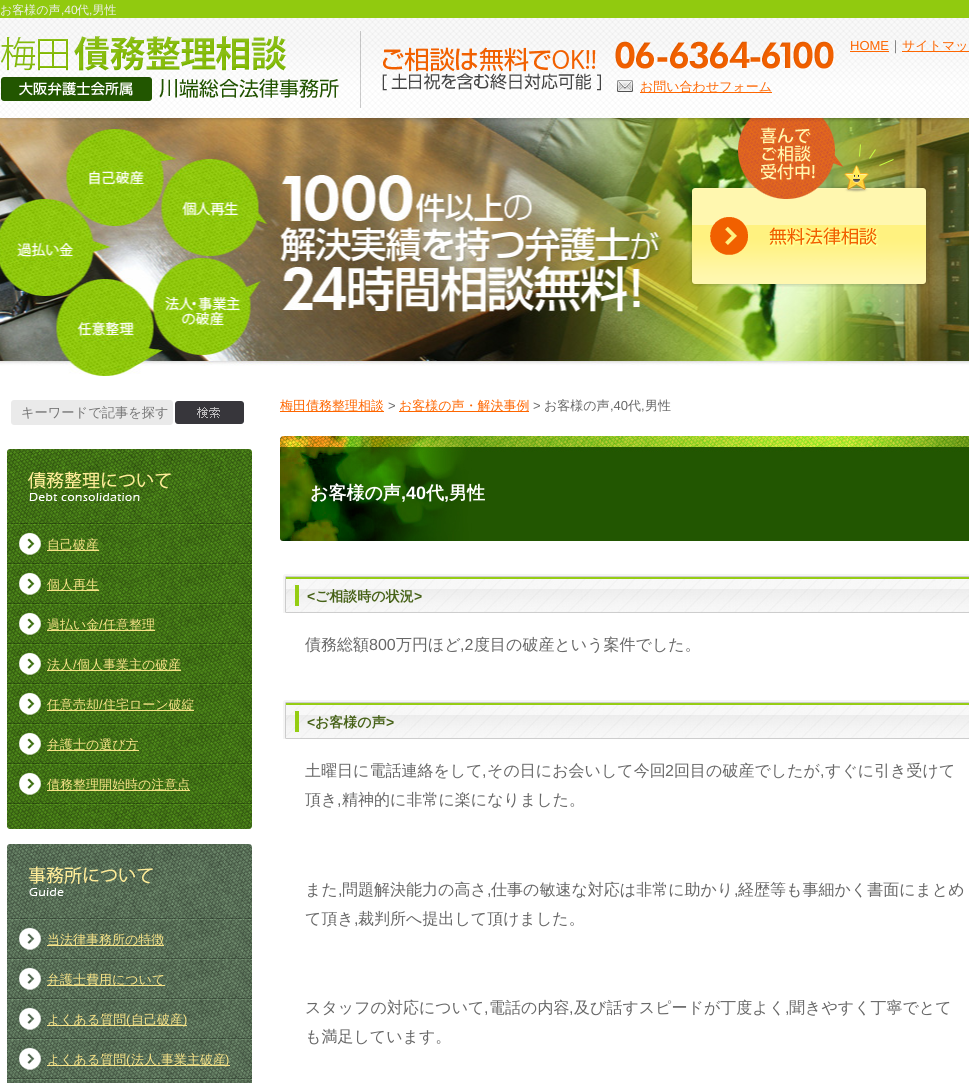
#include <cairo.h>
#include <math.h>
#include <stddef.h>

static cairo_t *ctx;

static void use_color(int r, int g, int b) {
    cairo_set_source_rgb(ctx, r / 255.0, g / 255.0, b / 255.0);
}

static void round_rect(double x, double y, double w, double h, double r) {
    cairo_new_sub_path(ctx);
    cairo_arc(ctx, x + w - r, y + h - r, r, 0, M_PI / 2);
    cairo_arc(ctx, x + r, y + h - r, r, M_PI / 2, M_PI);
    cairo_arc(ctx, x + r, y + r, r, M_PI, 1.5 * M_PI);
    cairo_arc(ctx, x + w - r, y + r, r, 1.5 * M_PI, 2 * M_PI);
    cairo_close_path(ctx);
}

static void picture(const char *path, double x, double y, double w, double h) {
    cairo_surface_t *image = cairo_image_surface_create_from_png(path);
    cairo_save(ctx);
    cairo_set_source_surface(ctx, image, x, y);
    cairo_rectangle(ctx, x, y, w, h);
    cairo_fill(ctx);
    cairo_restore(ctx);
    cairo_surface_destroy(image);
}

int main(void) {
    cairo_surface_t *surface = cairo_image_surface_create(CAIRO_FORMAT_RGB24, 969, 1083);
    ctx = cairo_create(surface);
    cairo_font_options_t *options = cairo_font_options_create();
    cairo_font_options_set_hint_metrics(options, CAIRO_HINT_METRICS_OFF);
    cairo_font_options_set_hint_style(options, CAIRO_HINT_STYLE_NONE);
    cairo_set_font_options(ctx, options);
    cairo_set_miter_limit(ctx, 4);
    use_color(255, 255, 255);
    cairo_paint(ctx);
    picture("img1.png", 0, 0, 969, 118);
    cairo_select_font_face(ctx, "WenQuanYi Zen Hei Medium", CAIRO_FONT_SLANT_NORMAL, CAIRO_FONT_WEIGHT_NORMAL);
    cairo_set_font_size(ctx, 12);
    use_color(238, 238, 238);
    cairo_move_to(ctx, 0, 14);
    cairo_show_text(ctx, "お客様の声");
    cairo_select_font_face(ctx, "Liberation Sans", CAIRO_FONT_SLANT_NORMAL, CAIRO_FONT_WEIGHT_NORMAL);
    cairo_move_to(ctx, 61, 14);
    cairo_show_text(ctx, ",40");
    cairo_select_font_face(ctx, "WenQuanYi Zen Hei Medium", CAIRO_FONT_SLANT_NORMAL, CAIRO_FONT_WEIGHT_NORMAL);
    cairo_move_to(ctx, 77, 14);
    cairo_show_text(ctx, "代 男性");
    cairo_select_font_face(ctx, "Liberation Sans", CAIRO_FONT_SLANT_NORMAL, CAIRO_FONT_WEIGHT_NORMAL);
    cairo_move_to(ctx, 89, 14);
    cairo_show_text(ctx, ",");
    picture("img2.png", 0, 36, 339, 65);
    picture("img3.png", 360, 31, 241, 77);
    cairo_set_font_size(ctx, 13);
    use_color(254, 102, 0);
    cairo_move_to(ctx, 850, 50);
    cairo_show_text(ctx, "HOME");
    cairo_rectangle(ctx, 850, 51, 39, 1);
    cairo_fill(ctx);
    cairo_select_font_face(ctx, "WenQuanYi Zen Hei Medium", CAIRO_FONT_SLANT_NORMAL, CAIRO_FONT_WEIGHT_NORMAL);
    use_color(102, 102, 102);
    cairo_move_to(ctx, 889, 50);
    cairo_show_text(ctx, "｜");
    use_color(254, 102, 0);
    cairo_rectangle(ctx, 902, 51, 67, 1);
    cairo_fill(ctx);
    cairo_move_to(ctx, 902, 50);
    cairo_show_text(ctx, "サイトマッ");
    picture("img4.png", 615, 41, 220, 29);
    picture("img5.png", 617, 80, 16, 12);
    cairo_rectangle(ctx, 640, 92, 132, 1);
    cairo_fill(ctx);
    cairo_move_to(ctx, 640, 91);
    cairo_show_text(ctx, "お問い合わせフォーム");
    picture("img6.png", 0, 118, 969, 258);
    picture("img7.png", 688, 118, 243, 169);
    use_color(234, 234, 234);
    round_rect(11, 400, 162, 25, 3);
    cairo_fill(ctx);
    cairo_set_font_size(ctx, 13.25);
    use_color(117, 117, 117);
    cairo_move_to(ctx, 21, 417);
    cairo_show_text(ctx, "キーワードで記事を探す");
    picture("img8.png", 175, 401, 69, 23);
    picture("img9.png", 7, 805, 245, 24);
    picture("img10.png", 7, 449, 245, 76);
    picture("img11.png", 7, 525, 245, 40);
    use_color(248, 228, 136);
    cairo_rectangle(ctx, 47, 550, 52, 1);
    cairo_fill(ctx);
    cairo_set_font_size(ctx, 13);
    cairo_move_to(ctx, 47, 549);
    cairo_show_text(ctx, "自己破産");
    picture("img11.png", 7, 565, 245, 40);
    cairo_rectangle(ctx, 47, 590, 52, 1);
    cairo_fill(ctx);
    cairo_move_to(ctx, 47, 589);
    cairo_show_text(ctx, "個人再生");
    picture("img11.png", 7, 605, 245, 40);
    cairo_rectangle(ctx, 47, 630, 108, 1);
    cairo_fill(ctx);
    cairo_move_to(ctx, 47, 629);
    cairo_show_text(ctx, "過払い金");
    cairo_select_font_face(ctx, "Liberation Sans", CAIRO_FONT_SLANT_NORMAL, CAIRO_FONT_WEIGHT_NORMAL);
    cairo_move_to(ctx, 99, 629);
    cairo_show_text(ctx, "/");
    cairo_select_font_face(ctx, "WenQuanYi Zen Hei Medium", CAIRO_FONT_SLANT_NORMAL, CAIRO_FONT_WEIGHT_NORMAL);
    cairo_move_to(ctx, 103, 629);
    cairo_show_text(ctx, "任意整理");
    picture("img11.png", 7, 645, 245, 40);
    cairo_rectangle(ctx, 47, 670, 134, 1);
    cairo_fill(ctx);
    cairo_move_to(ctx, 47, 669);
    cairo_show_text(ctx, "法人");
    cairo_select_font_face(ctx, "Liberation Sans", CAIRO_FONT_SLANT_NORMAL, CAIRO_FONT_WEIGHT_NORMAL);
    cairo_move_to(ctx, 73, 669);
    cairo_show_text(ctx, "/");
    cairo_select_font_face(ctx, "WenQuanYi Zen Hei Medium", CAIRO_FONT_SLANT_NORMAL, CAIRO_FONT_WEIGHT_NORMAL);
    cairo_move_to(ctx, 77, 669);
    cairo_show_text(ctx, "個人事業主の破産");
    picture("img11.png", 7, 685, 245, 40);
    cairo_rectangle(ctx, 47, 710, 147, 1);
    cairo_fill(ctx);
    cairo_move_to(ctx, 47, 709);
    cairo_show_text(ctx, "任意売却");
    cairo_select_font_face(ctx, "Liberation Sans", CAIRO_FONT_SLANT_NORMAL, CAIRO_FONT_WEIGHT_NORMAL);
    cairo_move_to(ctx, 99, 709);
    cairo_show_text(ctx, "/");
    cairo_select_font_face(ctx, "WenQuanYi Zen Hei Medium", CAIRO_FONT_SLANT_NORMAL, CAIRO_FONT_WEIGHT_NORMAL);
    cairo_move_to(ctx, 103, 709);
    cairo_show_text(ctx, "住宅ローン破綻");
    picture("img11.png", 7, 725, 245, 40);
    cairo_rectangle(ctx, 47, 750, 92, 1);
    cairo_fill(ctx);
    cairo_move_to(ctx, 47, 749);
    cairo_show_text(ctx, "弁護士の選び方");
    picture("img11.png", 7, 765, 245, 40);
    cairo_rectangle(ctx, 47, 790, 143, 1);
    cairo_fill(ctx);
    cairo_move_to(ctx, 47, 789);
    cairo_show_text(ctx, "債務整理開始時の注意点");
    picture("img12.png", 7, 844, 245, 76);
    picture("img13.png", 7, 920, 245, 40);
    cairo_rectangle(ctx, 47, 945, 117, 1);
    cairo_fill(ctx);
    cairo_move_to(ctx, 47, 944);
    cairo_show_text(ctx, "当法律事務所の特徴");
    picture("img13.png", 7, 960, 245, 40);
    cairo_rectangle(ctx, 47, 985, 118, 1);
    cairo_fill(ctx);
    cairo_move_to(ctx, 47, 984);
    cairo_show_text(ctx, "弁護士費用について");
    picture("img13.png", 7, 1000, 245, 40);
    cairo_rectangle(ctx, 47, 1025, 140, 1);
    cairo_fill(ctx);
    cairo_move_to(ctx, 47, 1024);
    cairo_show_text(ctx, "よくある質問");
    cairo_select_font_face(ctx, "Liberation Sans", CAIRO_FONT_SLANT_NORMAL, CAIRO_FONT_WEIGHT_NORMAL);
    cairo_move_to(ctx, 126, 1024);
    cairo_show_text(ctx, "(");
    cairo_select_font_face(ctx, "WenQuanYi Zen Hei Medium", CAIRO_FONT_SLANT_NORMAL, CAIRO_FONT_WEIGHT_NORMAL);
    cairo_move_to(ctx, 131, 1024);
    cairo_show_text(ctx, "自己破産");
    cairo_select_font_face(ctx, "Liberation Sans", CAIRO_FONT_SLANT_NORMAL, CAIRO_FONT_WEIGHT_NORMAL);
    cairo_move_to(ctx, 183, 1024);
    cairo_show_text(ctx, ")");
    picture("img13.png", 7, 1040, 245, 40);
    cairo_rectangle(ctx, 47, 1065, 183, 1);
    cairo_fill(ctx);
    cairo_select_font_face(ctx, "WenQuanYi Zen Hei Medium", CAIRO_FONT_SLANT_NORMAL, CAIRO_FONT_WEIGHT_NORMAL);
    cairo_move_to(ctx, 47, 1064);
    cairo_show_text(ctx, "よくある質問");
    cairo_select_font_face(ctx, "Liberation Sans", CAIRO_FONT_SLANT_NORMAL, CAIRO_FONT_WEIGHT_NORMAL);
    cairo_move_to(ctx, 126, 1064);
    cairo_show_text(ctx, "(");
    cairo_select_font_face(ctx, "WenQuanYi Zen Hei Medium", CAIRO_FONT_SLANT_NORMAL, CAIRO_FONT_WEIGHT_NORMAL);
    cairo_move_to(ctx, 131, 1064);
    cairo_show_text(ctx, "法人 事業主破産");
    cairo_select_font_face(ctx, "Liberation Sans", CAIRO_FONT_SLANT_NORMAL, CAIRO_FONT_WEIGHT_NORMAL);
    cairo_move_to(ctx, 225, 1064);
    cairo_show_text(ctx, ")");
    cairo_move_to(ctx, 157, 1064);
    cairo_show_text(ctx, ",");
    picture("img14.png", 7, 1080, 245, 3);
    use_color(254, 102, 0);
    cairo_rectangle(ctx, 280, 411, 104, 1);
    cairo_fill(ctx);
    cairo_select_font_face(ctx, "WenQuanYi Zen Hei Medium", CAIRO_FONT_SLANT_NORMAL, CAIRO_FONT_WEIGHT_NORMAL);
    cairo_move_to(ctx, 280, 410);
    cairo_show_text(ctx, "梅田債務整理相談");
    cairo_select_font_face(ctx, "Liberation Sans", CAIRO_FONT_SLANT_NORMAL, CAIRO_FONT_WEIGHT_NORMAL);
    use_color(102, 102, 102);
    cairo_move_to(ctx, 388, 410);
    cairo_show_text(ctx, ">");
    use_color(254, 102, 0);
    cairo_rectangle(ctx, 399, 411, 130, 1);
    cairo_fill(ctx);
    cairo_select_font_face(ctx, "WenQuanYi Zen Hei Medium", CAIRO_FONT_SLANT_NORMAL, CAIRO_FONT_WEIGHT_NORMAL);
    cairo_move_to(ctx, 399, 410);
    cairo_show_text(ctx, "お客様の声・解決事例");
    cairo_select_font_face(ctx, "Liberation Sans", CAIRO_FONT_SLANT_NORMAL, CAIRO_FONT_WEIGHT_NORMAL);
    use_color(102, 102, 102);
    cairo_move_to(ctx, 533, 410);
    cairo_show_text(ctx, ">");
    cairo_select_font_face(ctx, "WenQuanYi Zen Hei Medium", CAIRO_FONT_SLANT_NORMAL, CAIRO_FONT_WEIGHT_NORMAL);
    cairo_move_to(ctx, 544, 410);
    cairo_show_text(ctx, "お客様の声");
    cairo_select_font_face(ctx, "Liberation Sans", CAIRO_FONT_SLANT_NORMAL, CAIRO_FONT_WEIGHT_NORMAL);
    cairo_move_to(ctx, 610, 410);
    cairo_show_text(ctx, ",40");
    cairo_select_font_face(ctx, "WenQuanYi Zen Hei Medium", CAIRO_FONT_SLANT_NORMAL, CAIRO_FONT_WEIGHT_NORMAL);
    cairo_move_to(ctx, 628, 410);
    cairo_show_text(ctx, "代 男性");
    cairo_select_font_face(ctx, "Liberation Sans", CAIRO_FONT_SLANT_NORMAL, CAIRO_FONT_WEIGHT_NORMAL);
    cairo_move_to(ctx, 641, 410);
    cairo_show_text(ctx, ",");
    picture("img15.png", 280, 436, 689, 105);
    cairo_select_font_face(ctx, "WenQuanYi Zen Hei", CAIRO_FONT_SLANT_NORMAL, CAIRO_FONT_WEIGHT_BOLD);
    cairo_set_font_size(ctx, 18);
    use_color(255, 255, 255);
    cairo_move_to(ctx, 310, 499);
    cairo_show_text(ctx, "お客様の声");
    cairo_select_font_face(ctx, "Liberation Sans", CAIRO_FONT_SLANT_NORMAL, CAIRO_FONT_WEIGHT_BOLD);
    cairo_move_to(ctx, 401, 499);
    cairo_show_text(ctx, ",40");
    cairo_select_font_face(ctx, "WenQuanYi Zen Hei", CAIRO_FONT_SLANT_NORMAL, CAIRO_FONT_WEIGHT_BOLD);
    cairo_move_to(ctx, 426, 499);
    cairo_show_text(ctx, "代");
    cairo_select_font_face(ctx, "Liberation Sans", CAIRO_FONT_SLANT_NORMAL, CAIRO_FONT_WEIGHT_BOLD);
    cairo_move_to(ctx, 444, 499);
    cairo_show_text(ctx, ",");
    cairo_select_font_face(ctx, "WenQuanYi Zen Hei", CAIRO_FONT_SLANT_NORMAL, CAIRO_FONT_WEIGHT_BOLD);
    cairo_move_to(ctx, 449, 499);
    cairo_show_text(ctx, "男性");
    picture("img16.png", 283, 574, 686, 39);
    cairo_select_font_face(ctx, "Liberation Sans", CAIRO_FONT_SLANT_NORMAL, CAIRO_FONT_WEIGHT_BOLD);
    cairo_set_font_size(ctx, 14);
    use_color(71, 98, 24);
    cairo_move_to(ctx, 307, 601);
    cairo_show_text(ctx, "<");
    cairo_select_font_face(ctx, "WenQuanYi Zen Hei", CAIRO_FONT_SLANT_NORMAL, CAIRO_FONT_WEIGHT_BOLD);
    cairo_move_to(ctx, 315, 601);
    cairo_show_text(ctx, "ご相談時の状況");
    cairo_select_font_face(ctx, "Liberation Sans", CAIRO_FONT_SLANT_NORMAL, CAIRO_FONT_WEIGHT_BOLD);
    cairo_move_to(ctx, 414, 601);
    cairo_show_text(ctx, ">");
    cairo_select_font_face(ctx, "WenQuanYi Zen Hei Medium", CAIRO_FONT_SLANT_NORMAL, CAIRO_FONT_WEIGHT_NORMAL);
    cairo_set_font_size(ctx, 16);
    use_color(102, 102, 102);
    cairo_move_to(ctx, 305, 650);
    cairo_show_text(ctx, "債務総額");
    cairo_select_font_face(ctx, "Liberation Sans", CAIRO_FONT_SLANT_NORMAL, CAIRO_FONT_WEIGHT_NORMAL);
    cairo_move_to(ctx, 369, 650);
    cairo_show_text(ctx, "800");
    cairo_select_font_face(ctx, "WenQuanYi Zen Hei Medium", CAIRO_FONT_SLANT_NORMAL, CAIRO_FONT_WEIGHT_NORMAL);
    cairo_move_to(ctx, 396, 650);
    cairo_show_text(ctx, "万円ほど");
    cairo_select_font_face(ctx, "Liberation Sans", CAIRO_FONT_SLANT_NORMAL, CAIRO_FONT_WEIGHT_NORMAL);
    cairo_move_to(ctx, 460, 650);
    cairo_show_text(ctx, ",2");
    cairo_select_font_face(ctx, "WenQuanYi Zen Hei Medium", CAIRO_FONT_SLANT_NORMAL, CAIRO_FONT_WEIGHT_NORMAL);
    cairo_move_to(ctx, 474, 650);
    cairo_show_text(ctx, "度目の破産という案件でした。");
    picture("img16.png", 283, 700, 686, 39);
    cairo_select_font_face(ctx, "Liberation Sans", CAIRO_FONT_SLANT_NORMAL, CAIRO_FONT_WEIGHT_BOLD);
    cairo_set_font_size(ctx, 14);
    use_color(71, 98, 24);
    cairo_move_to(ctx, 307, 727);
    cairo_show_text(ctx, "<");
    cairo_select_font_face(ctx, "WenQuanYi Zen Hei", CAIRO_FONT_SLANT_NORMAL, CAIRO_FONT_WEIGHT_BOLD);
    cairo_move_to(ctx, 315, 727);
    cairo_show_text(ctx, "お客様の声");
    cairo_select_font_face(ctx, "Liberation Sans", CAIRO_FONT_SLANT_NORMAL, CAIRO_FONT_WEIGHT_BOLD);
    cairo_move_to(ctx, 386, 727);
    cairo_show_text(ctx, ">");
    cairo_select_font_face(ctx, "WenQuanYi Zen Hei Medium", CAIRO_FONT_SLANT_NORMAL, CAIRO_FONT_WEIGHT_NORMAL);
    cairo_set_font_size(ctx, 16);
    use_color(102, 102, 102);
    cairo_move_to(ctx, 305, 776);
    cairo_show_text(ctx, "土曜日に電話連絡をして");
    cairo_move_to(ctx, 487, 776);
    cairo_show_text(ctx, "その日にお会いして今回");
    cairo_select_font_face(ctx, "Liberation Sans", CAIRO_FONT_SLANT_NORMAL, CAIRO_FONT_WEIGHT_NORMAL);
    cairo_move_to(ctx, 665, 776);
    cairo_show_text(ctx, "2");
    cairo_select_font_face(ctx, "WenQuanYi Zen Hei Medium", CAIRO_FONT_SLANT_NORMAL, CAIRO_FONT_WEIGHT_NORMAL);
    cairo_move_to(ctx, 674, 776);
    cairo_show_text(ctx, "回目の破産でしたが");
    cairo_move_to(ctx, 825, 776);
    cairo_show_text(ctx, "すぐに引き受けて");
    cairo_select_font_face(ctx, "Liberation Sans", CAIRO_FONT_SLANT_NORMAL, CAIRO_FONT_WEIGHT_NORMAL);
    cairo_move_to(ctx, 482, 776);
    cairo_show_text(ctx, ",");
    cairo_move_to(ctx, 820, 776);
    cairo_show_text(ctx, ",");
    cairo_select_font_face(ctx, "WenQuanYi Zen Hei Medium", CAIRO_FONT_SLANT_NORMAL, CAIRO_FONT_WEIGHT_NORMAL);
    cairo_move_to(ctx, 305, 805);
    cairo_show_text(ctx, "頂き");
    cairo_select_font_face(ctx, "Liberation Sans", CAIRO_FONT_SLANT_NORMAL, CAIRO_FONT_WEIGHT_NORMAL);
    cairo_move_to(ctx, 337, 805);
    cairo_show_text(ctx, ",");
    cairo_select_font_face(ctx, "WenQuanYi Zen Hei Medium", CAIRO_FONT_SLANT_NORMAL, CAIRO_FONT_WEIGHT_NORMAL);
    cairo_move_to(ctx, 342, 805);
    cairo_show_text(ctx, "精神的に非常に楽になりました。");
    cairo_move_to(ctx, 305, 895);
    cairo_show_text(ctx, "また");
    cairo_select_font_face(ctx, "Liberation Sans", CAIRO_FONT_SLANT_NORMAL, CAIRO_FONT_WEIGHT_NORMAL);
    cairo_move_to(ctx, 338, 895);
    cairo_show_text(ctx, ",");
    cairo_select_font_face(ctx, "WenQuanYi Zen Hei Medium", CAIRO_FONT_SLANT_NORMAL, CAIRO_FONT_WEIGHT_NORMAL);
    cairo_move_to(ctx, 342, 895);
    cairo_show_text(ctx, "問題解決能力の高さ");
    cairo_select_font_face(ctx, "Liberation Sans", CAIRO_FONT_SLANT_NORMAL, CAIRO_FONT_WEIGHT_NORMAL);
    cairo_move_to(ctx, 487, 895);
    cairo_show_text(ctx, ",");
    cairo_select_font_face(ctx, "WenQuanYi Zen Hei Medium", CAIRO_FONT_SLANT_NORMAL, CAIRO_FONT_WEIGHT_NORMAL);
    cairo_move_to(ctx, 491, 895);
    cairo_show_text(ctx, "仕事の敏速な対応は非常に助かり");
    cairo_select_font_face(ctx, "Liberation Sans", CAIRO_FONT_SLANT_NORMAL, CAIRO_FONT_WEIGHT_NORMAL);
    cairo_move_to(ctx, 734, 895);
    cairo_show_text(ctx, ",");
    cairo_select_font_face(ctx, "WenQuanYi Zen Hei Medium", CAIRO_FONT_SLANT_NORMAL, CAIRO_FONT_WEIGHT_NORMAL);
    cairo_move_to(ctx, 738, 895);
    cairo_show_text(ctx, "経歴等も事細かく書面にまとめ");
    cairo_move_to(ctx, 305, 924);
    cairo_show_text(ctx, "て頂き");
    cairo_select_font_face(ctx, "Liberation Sans", CAIRO_FONT_SLANT_NORMAL, CAIRO_FONT_WEIGHT_NORMAL);
    cairo_move_to(ctx, 354, 924);
    cairo_show_text(ctx, ",");
    cairo_select_font_face(ctx, "WenQuanYi Zen Hei Medium", CAIRO_FONT_SLANT_NORMAL, CAIRO_FONT_WEIGHT_NORMAL);
    cairo_move_to(ctx, 358, 924);
    cairo_show_text(ctx, "裁判所へ提出して頂けました。");
    cairo_move_to(ctx, 305, 1013);
    cairo_show_text(ctx, "スタッフの対応について");
    cairo_select_font_face(ctx, "Liberation Sans", CAIRO_FONT_SLANT_NORMAL, CAIRO_FONT_WEIGHT_NORMAL);
    cairo_move_to(ctx, 484, 1013);
    cairo_show_text(ctx, ",");
    cairo_select_font_face(ctx, "WenQuanYi Zen Hei Medium", CAIRO_FONT_SLANT_NORMAL, CAIRO_FONT_WEIGHT_NORMAL);
    cairo_move_to(ctx, 489, 1013);
    cairo_show_text(ctx, "電話の内容");
    cairo_select_font_face(ctx, "Liberation Sans", CAIRO_FONT_SLANT_NORMAL, CAIRO_FONT_WEIGHT_NORMAL);
    cairo_move_to(ctx, 569, 1013);
    cairo_show_text(ctx, ",");
    cairo_select_font_face(ctx, "WenQuanYi Zen Hei Medium", CAIRO_FONT_SLANT_NORMAL, CAIRO_FONT_WEIGHT_NORMAL);
    cairo_move_to(ctx, 574, 1013);
    cairo_show_text(ctx, "及び話すスピードが丁度よく");
    cairo_select_font_face(ctx, "Liberation Sans", CAIRO_FONT_SLANT_NORMAL, CAIRO_FONT_WEIGHT_NORMAL);
    cairo_move_to(ctx, 785, 1013);
    cairo_show_text(ctx, ",");
    cairo_select_font_face(ctx, "WenQuanYi Zen Hei Medium", CAIRO_FONT_SLANT_NORMAL, CAIRO_FONT_WEIGHT_NORMAL);
    cairo_move_to(ctx, 789, 1013);
    cairo_show_text(ctx, "聞きやすく丁寧でとて");
    cairo_move_to(ctx, 305, 1042);
    cairo_show_text(ctx, "も満足しています。");
    cairo_surface_write_to_png(surface, "result.png");
    cairo_font_options_destroy(options);
    cairo_destroy(ctx);
    cairo_surface_destroy(surface);
    return 0;
}
